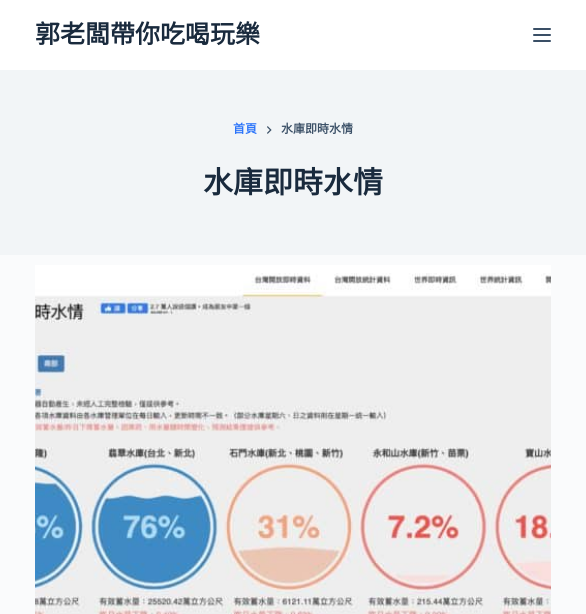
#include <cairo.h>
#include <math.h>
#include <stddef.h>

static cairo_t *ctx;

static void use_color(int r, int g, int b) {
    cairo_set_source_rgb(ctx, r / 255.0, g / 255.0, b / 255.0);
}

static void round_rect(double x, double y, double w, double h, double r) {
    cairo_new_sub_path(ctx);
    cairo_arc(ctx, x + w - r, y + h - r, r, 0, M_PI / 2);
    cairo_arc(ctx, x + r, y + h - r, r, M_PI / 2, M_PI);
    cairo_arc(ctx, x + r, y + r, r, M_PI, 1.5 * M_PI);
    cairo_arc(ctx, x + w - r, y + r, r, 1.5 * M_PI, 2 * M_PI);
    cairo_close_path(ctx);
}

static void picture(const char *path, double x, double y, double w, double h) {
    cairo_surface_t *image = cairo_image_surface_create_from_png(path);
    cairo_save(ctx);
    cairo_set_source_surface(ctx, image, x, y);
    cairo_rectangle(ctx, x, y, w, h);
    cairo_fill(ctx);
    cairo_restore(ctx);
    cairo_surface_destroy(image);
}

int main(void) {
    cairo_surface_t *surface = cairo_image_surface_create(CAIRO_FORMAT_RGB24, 586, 614);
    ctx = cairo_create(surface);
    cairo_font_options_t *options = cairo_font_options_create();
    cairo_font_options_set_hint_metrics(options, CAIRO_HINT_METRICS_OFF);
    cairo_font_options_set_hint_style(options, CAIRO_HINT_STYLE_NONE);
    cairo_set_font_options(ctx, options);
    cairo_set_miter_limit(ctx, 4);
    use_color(250, 251, 252);
    cairo_paint(ctx);
    use_color(255, 255, 255);
    cairo_rectangle(ctx, 0, 0, 586, 70);
    cairo_fill(ctx);
    cairo_select_font_face(ctx, "Noto Sans CJK TC", CAIRO_FONT_SLANT_NORMAL, CAIRO_FONT_WEIGHT_BOLD);
    cairo_set_font_size(ctx, 25);
    use_color(25, 42, 61);
    cairo_move_to(ctx, 35, 43);
    cairo_show_text(ctx, "郭老闆帶你吃喝玩樂");
    use_color(58, 79, 102);
    round_rect(533, 28, 18, 2, 1);
    cairo_fill(ctx);
    round_rect(533, 34, 18, 2, 1);
    cairo_fill(ctx);
    round_rect(533, 40, 18, 2, 1);
    cairo_fill(ctx);
    use_color(242, 245, 247);
    cairo_rectangle(ctx, 0, 70, 586, 185);
    cairo_fill(ctx);
    cairo_set_font_size(ctx, 12);
    use_color(40, 114, 250);
    cairo_move_to(ctx, 233, 133);
    cairo_show_text(ctx, "首頁");
    picture("img1.png", 267, 126, 5, 8);
    use_color(58, 79, 102);
    cairo_move_to(ctx, 281, 133);
    cairo_show_text(ctx, "水庫即時水情");
    cairo_set_font_size(ctx, 30);
    use_color(25, 42, 61);
    cairo_move_to(ctx, 203, 193);
    cairo_show_text(ctx, "水庫即時水情");
    use_color(255, 255, 255);
    cairo_rectangle(ctx, 35, 265, 516, 8);
    cairo_fill(ctx);
    picture("img2.png", 35, 273, 516, 341);
    cairo_surface_write_to_png(surface, "result.png");
    cairo_font_options_destroy(options);
    cairo_destroy(ctx);
    cairo_surface_destroy(surface);
    return 0;
}
